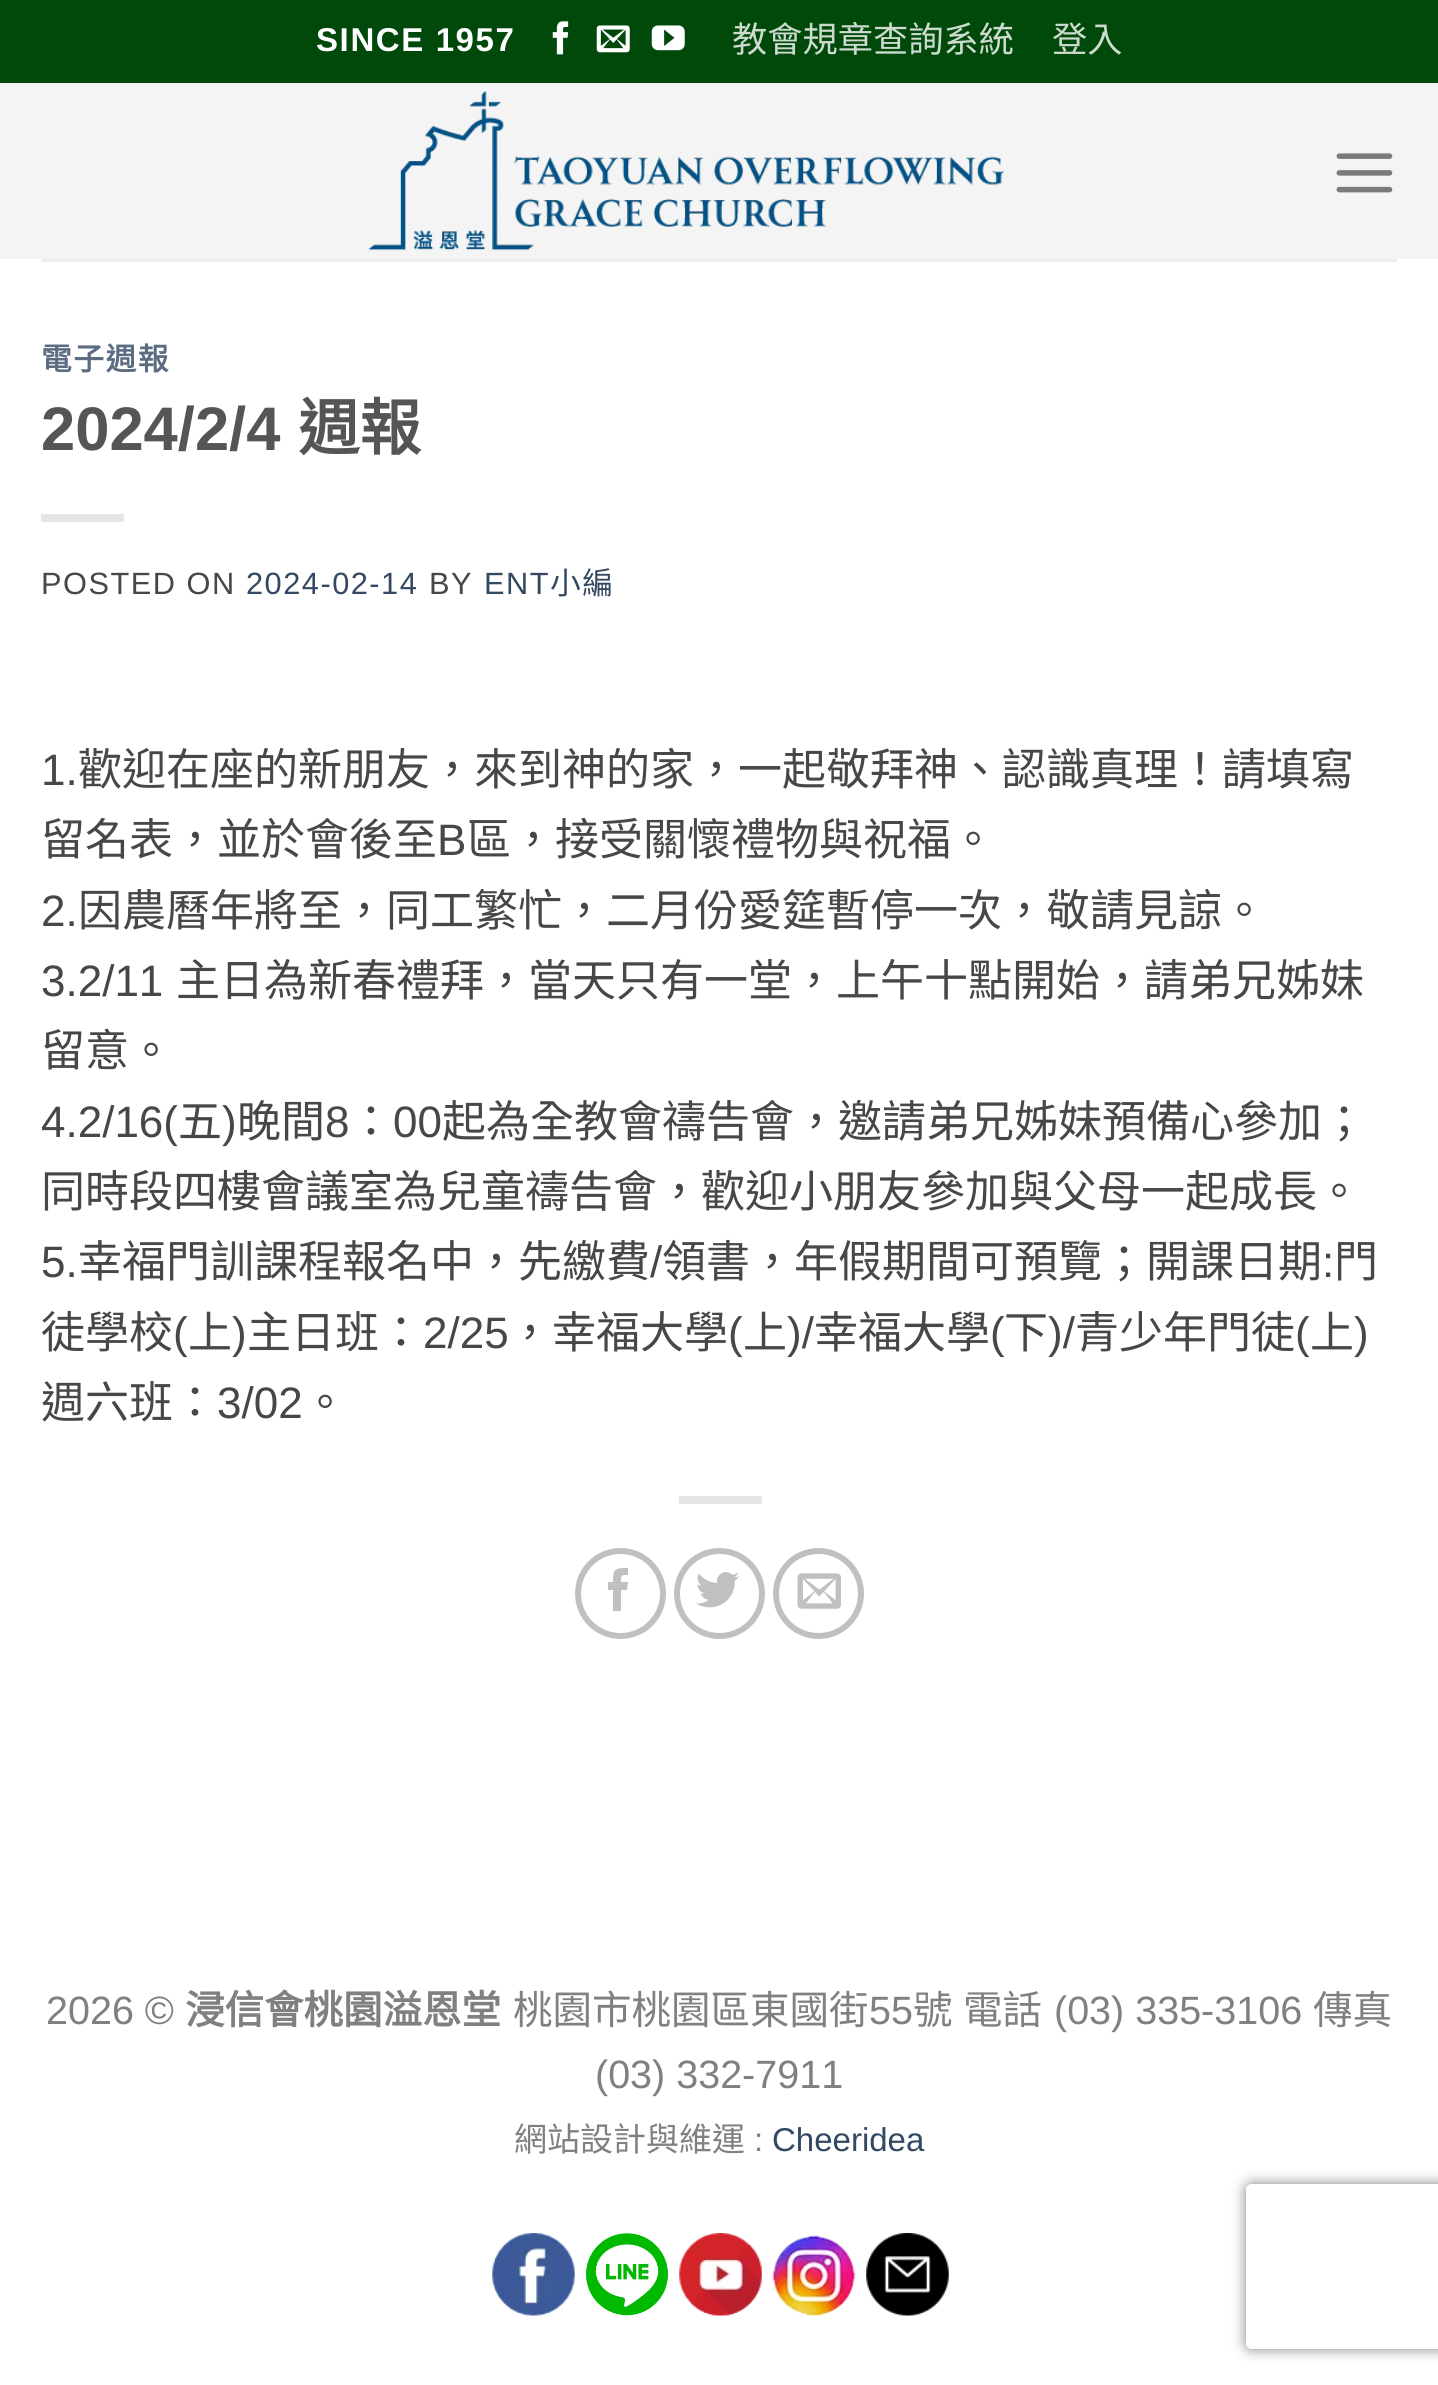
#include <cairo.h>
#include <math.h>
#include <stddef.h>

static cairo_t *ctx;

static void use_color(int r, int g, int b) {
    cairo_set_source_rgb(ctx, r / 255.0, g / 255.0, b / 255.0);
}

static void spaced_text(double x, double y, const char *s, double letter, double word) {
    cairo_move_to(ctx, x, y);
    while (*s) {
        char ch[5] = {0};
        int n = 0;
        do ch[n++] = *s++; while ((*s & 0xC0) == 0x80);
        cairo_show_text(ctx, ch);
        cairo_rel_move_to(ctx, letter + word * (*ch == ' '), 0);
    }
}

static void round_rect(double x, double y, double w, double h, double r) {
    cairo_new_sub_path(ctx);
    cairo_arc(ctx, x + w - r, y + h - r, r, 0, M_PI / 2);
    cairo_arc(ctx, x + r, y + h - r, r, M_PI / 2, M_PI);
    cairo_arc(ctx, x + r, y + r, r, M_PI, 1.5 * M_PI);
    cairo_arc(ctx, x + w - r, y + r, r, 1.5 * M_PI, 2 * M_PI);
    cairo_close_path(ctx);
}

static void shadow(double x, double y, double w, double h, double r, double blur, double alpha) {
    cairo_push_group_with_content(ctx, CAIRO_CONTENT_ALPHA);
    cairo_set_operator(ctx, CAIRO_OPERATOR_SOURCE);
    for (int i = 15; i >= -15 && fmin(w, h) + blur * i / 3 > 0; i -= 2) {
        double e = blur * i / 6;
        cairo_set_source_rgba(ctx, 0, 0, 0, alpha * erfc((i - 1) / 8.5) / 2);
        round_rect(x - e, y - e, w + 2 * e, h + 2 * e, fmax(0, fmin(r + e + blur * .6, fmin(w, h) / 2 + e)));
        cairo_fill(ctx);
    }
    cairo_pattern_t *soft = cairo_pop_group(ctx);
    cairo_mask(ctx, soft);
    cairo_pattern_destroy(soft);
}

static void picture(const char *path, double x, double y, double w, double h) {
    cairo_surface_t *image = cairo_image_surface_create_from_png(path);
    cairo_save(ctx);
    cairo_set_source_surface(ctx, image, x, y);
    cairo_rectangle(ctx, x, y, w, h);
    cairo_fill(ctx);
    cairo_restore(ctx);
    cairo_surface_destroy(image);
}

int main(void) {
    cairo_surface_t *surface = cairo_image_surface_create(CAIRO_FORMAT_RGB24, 1438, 2385);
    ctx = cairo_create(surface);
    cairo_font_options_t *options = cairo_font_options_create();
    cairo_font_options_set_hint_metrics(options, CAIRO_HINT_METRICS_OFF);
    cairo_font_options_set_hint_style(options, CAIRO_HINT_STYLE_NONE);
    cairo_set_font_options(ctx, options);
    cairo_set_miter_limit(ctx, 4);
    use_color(255, 255, 255);
    cairo_paint(ctx);
    use_color(0, 73, 11);
    cairo_rectangle(ctx, 0, 0, 1438, 83);
    cairo_fill(ctx);
    cairo_select_font_face(ctx, "Liberation Sans", CAIRO_FONT_SLANT_NORMAL, CAIRO_FONT_WEIGHT_BOLD);
    cairo_set_font_size(ctx, 33);
    use_color(255, 255, 255);
    spaced_text(316, 51, "SINCE 1957", 1.6, 0);
    picture("img1.png", 552, 21, 17, 34);
    picture("img2.png", 596, 25, 34, 28);
    picture("img3.png", 651, 25, 34, 26);
    cairo_select_font_face(ctx, "Noto Sans CJK TC", CAIRO_FONT_SLANT_NORMAL, CAIRO_FONT_WEIGHT_NORMAL);
    cairo_set_font_size(ctx, 35.25);
    use_color(204, 219, 206);
    cairo_move_to(ctx, 732, 52);
    cairo_show_text(ctx, "教會規章查詢系統");
    cairo_move_to(ctx, 1052, 52);
    cairo_show_text(ctx, "登入");
    use_color(244, 244, 244);
    cairo_rectangle(ctx, 0, 83, 1438, 176);
    cairo_fill(ctx);
    picture("img4.png", 368, 90, 636, 161);
    picture("img5.png", 1336, 153, 57, 40);
    use_color(237, 237, 237);
    cairo_rectangle(ctx, 41, 259, 1356, 3);
    cairo_fill(ctx);
    cairo_select_font_face(ctx, "Noto Sans CJK TC", CAIRO_FONT_SLANT_NORMAL, CAIRO_FONT_WEIGHT_BOLD);
    cairo_set_font_size(ctx, 30.75);
    use_color(92, 109, 129);
    spaced_text(41, 370, "電子週報", 1.5, 0);
    cairo_select_font_face(ctx, "Liberation Sans", CAIRO_FONT_SLANT_NORMAL, CAIRO_FONT_WEIGHT_BOLD);
    cairo_set_font_size(ctx, 61.5);
    use_color(85, 85, 85);
    cairo_move_to(ctx, 41, 450);
    cairo_show_text(ctx, "2024/2/4");
    cairo_select_font_face(ctx, "Noto Sans CJK TC", CAIRO_FONT_SLANT_NORMAL, CAIRO_FONT_WEIGHT_BOLD);
    cairo_move_to(ctx, 298, 450);
    cairo_show_text(ctx, "週報");
    use_color(230, 230, 230);
    cairo_rectangle(ctx, 41, 514, 83, 8);
    cairo_fill(ctx);
    cairo_select_font_face(ctx, "Liberation Sans", CAIRO_FONT_SLANT_NORMAL, CAIRO_FONT_WEIGHT_NORMAL);
    cairo_set_font_size(ctx, 30.75);
    use_color(71, 71, 71);
    spaced_text(41, 594, "POSTED ON", 1.5, 0);
    use_color(51, 72, 98);
    spaced_text(246, 594, "2024-02-14", 1.5, 0);
    use_color(71, 71, 71);
    spaced_text(429, 594, "BY", 1.5, 0);
    use_color(51, 72, 98);
    spaced_text(484, 594, "ENT", 1.5, 0);
    cairo_select_font_face(ctx, "Noto Sans CJK TC", CAIRO_FONT_SLANT_NORMAL, CAIRO_FONT_WEIGHT_NORMAL);
    spaced_text(550, 594, "小編", 1.5, 0);
    cairo_select_font_face(ctx, "Liberation Sans", CAIRO_FONT_SLANT_NORMAL, CAIRO_FONT_WEIGHT_NORMAL);
    cairo_set_font_size(ctx, 44);
    use_color(71, 71, 71);
    cairo_move_to(ctx, 41, 785);
    cairo_show_text(ctx, "1.");
    cairo_select_font_face(ctx, "Noto Sans CJK TC", CAIRO_FONT_SLANT_NORMAL, CAIRO_FONT_WEIGHT_NORMAL);
    cairo_move_to(ctx, 78, 785);
    cairo_show_text(ctx, "歡迎在座的新朋友，來到神的家，一起敬拜神、認識真理！請填寫");
    cairo_move_to(ctx, 41, 855);
    cairo_show_text(ctx, "留名表，並於會後至");
    cairo_select_font_face(ctx, "Liberation Sans", CAIRO_FONT_SLANT_NORMAL, CAIRO_FONT_WEIGHT_NORMAL);
    cairo_move_to(ctx, 437, 855);
    cairo_show_text(ctx, "B");
    cairo_select_font_face(ctx, "Noto Sans CJK TC", CAIRO_FONT_SLANT_NORMAL, CAIRO_FONT_WEIGHT_NORMAL);
    cairo_move_to(ctx, 467, 855);
    cairo_show_text(ctx, "區，接受關懷禮物與祝福。");
    cairo_select_font_face(ctx, "Liberation Sans", CAIRO_FONT_SLANT_NORMAL, CAIRO_FONT_WEIGHT_NORMAL);
    cairo_move_to(ctx, 41, 926);
    cairo_show_text(ctx, "2.");
    cairo_select_font_face(ctx, "Noto Sans CJK TC", CAIRO_FONT_SLANT_NORMAL, CAIRO_FONT_WEIGHT_NORMAL);
    cairo_move_to(ctx, 78, 926);
    cairo_show_text(ctx, "因農曆年將至，同工繁忙，二月份愛筵暫停一次，敬請見諒。");
    cairo_select_font_face(ctx, "Liberation Sans", CAIRO_FONT_SLANT_NORMAL, CAIRO_FONT_WEIGHT_NORMAL);
    cairo_move_to(ctx, 41, 996);
    cairo_show_text(ctx, "3.2/11");
    cairo_select_font_face(ctx, "Noto Sans CJK TC", CAIRO_FONT_SLANT_NORMAL, CAIRO_FONT_WEIGHT_NORMAL);
    cairo_move_to(ctx, 176, 996);
    cairo_show_text(ctx, "主日為新春禮拜，當天只有一堂，上午十點開始，請弟兄姊妹");
    cairo_move_to(ctx, 41, 1066);
    cairo_show_text(ctx, "留意。");
    cairo_select_font_face(ctx, "Liberation Sans", CAIRO_FONT_SLANT_NORMAL, CAIRO_FONT_WEIGHT_NORMAL);
    cairo_move_to(ctx, 41, 1137);
    cairo_show_text(ctx, "4.2/16(");
    cairo_select_font_face(ctx, "Noto Sans CJK TC", CAIRO_FONT_SLANT_NORMAL, CAIRO_FONT_WEIGHT_NORMAL);
    cairo_move_to(ctx, 178, 1137);
    cairo_show_text(ctx, "五");
    cairo_select_font_face(ctx, "Liberation Sans", CAIRO_FONT_SLANT_NORMAL, CAIRO_FONT_WEIGHT_NORMAL);
    cairo_move_to(ctx, 222, 1137);
    cairo_show_text(ctx, ")");
    cairo_select_font_face(ctx, "Noto Sans CJK TC", CAIRO_FONT_SLANT_NORMAL, CAIRO_FONT_WEIGHT_NORMAL);
    cairo_move_to(ctx, 237, 1137);
    cairo_show_text(ctx, "晚間");
    cairo_select_font_face(ctx, "Liberation Sans", CAIRO_FONT_SLANT_NORMAL, CAIRO_FONT_WEIGHT_NORMAL);
    cairo_move_to(ctx, 325, 1137);
    cairo_show_text(ctx, "8");
    cairo_select_font_face(ctx, "Noto Sans CJK TC", CAIRO_FONT_SLANT_NORMAL, CAIRO_FONT_WEIGHT_NORMAL);
    cairo_move_to(ctx, 349, 1137);
    cairo_show_text(ctx, "：");
    cairo_select_font_face(ctx, "Liberation Sans", CAIRO_FONT_SLANT_NORMAL, CAIRO_FONT_WEIGHT_NORMAL);
    cairo_move_to(ctx, 393, 1137);
    cairo_show_text(ctx, "00");
    cairo_select_font_face(ctx, "Noto Sans CJK TC", CAIRO_FONT_SLANT_NORMAL, CAIRO_FONT_WEIGHT_NORMAL);
    cairo_move_to(ctx, 442, 1137);
    cairo_show_text(ctx, "起為全教會禱告會，邀請弟兄姊妹預備心參加；");
    cairo_move_to(ctx, 41, 1207);
    cairo_show_text(ctx, "同時段四樓會議室為兒童禱告會，歡迎小朋友參加與父母一起成長。");
    cairo_select_font_face(ctx, "Liberation Sans", CAIRO_FONT_SLANT_NORMAL, CAIRO_FONT_WEIGHT_NORMAL);
    cairo_move_to(ctx, 41, 1277);
    cairo_show_text(ctx, "5.");
    cairo_select_font_face(ctx, "Noto Sans CJK TC", CAIRO_FONT_SLANT_NORMAL, CAIRO_FONT_WEIGHT_NORMAL);
    cairo_move_to(ctx, 78, 1277);
    cairo_show_text(ctx, "幸福門訓課程報名中，先繳費");
    cairo_select_font_face(ctx, "Liberation Sans", CAIRO_FONT_SLANT_NORMAL, CAIRO_FONT_WEIGHT_NORMAL);
    cairo_move_to(ctx, 650, 1277);
    cairo_show_text(ctx, "/");
    cairo_select_font_face(ctx, "Noto Sans CJK TC", CAIRO_FONT_SLANT_NORMAL, CAIRO_FONT_WEIGHT_NORMAL);
    cairo_move_to(ctx, 662, 1277);
    cairo_show_text(ctx, "領書，年假期間可預覽；開課日期");
    cairo_select_font_face(ctx, "Liberation Sans", CAIRO_FONT_SLANT_NORMAL, CAIRO_FONT_WEIGHT_NORMAL);
    cairo_move_to(ctx, 1322, 1277);
    cairo_show_text(ctx, ":");
    cairo_select_font_face(ctx, "Noto Sans CJK TC", CAIRO_FONT_SLANT_NORMAL, CAIRO_FONT_WEIGHT_NORMAL);
    cairo_move_to(ctx, 1334, 1277);
    cairo_show_text(ctx, "門");
    cairo_move_to(ctx, 41, 1348);
    cairo_show_text(ctx, "徒學校");
    cairo_select_font_face(ctx, "Liberation Sans", CAIRO_FONT_SLANT_NORMAL, CAIRO_FONT_WEIGHT_NORMAL);
    cairo_move_to(ctx, 173, 1348);
    cairo_show_text(ctx, "(");
    cairo_select_font_face(ctx, "Noto Sans CJK TC", CAIRO_FONT_SLANT_NORMAL, CAIRO_FONT_WEIGHT_NORMAL);
    cairo_move_to(ctx, 188, 1348);
    cairo_show_text(ctx, "上");
    cairo_select_font_face(ctx, "Liberation Sans", CAIRO_FONT_SLANT_NORMAL, CAIRO_FONT_WEIGHT_NORMAL);
    cairo_move_to(ctx, 232, 1348);
    cairo_show_text(ctx, ")");
    cairo_select_font_face(ctx, "Noto Sans CJK TC", CAIRO_FONT_SLANT_NORMAL, CAIRO_FONT_WEIGHT_NORMAL);
    cairo_move_to(ctx, 247, 1348);
    cairo_show_text(ctx, "主日班：");
    cairo_select_font_face(ctx, "Liberation Sans", CAIRO_FONT_SLANT_NORMAL, CAIRO_FONT_WEIGHT_NORMAL);
    cairo_move_to(ctx, 423, 1348);
    cairo_show_text(ctx, "2/25");
    cairo_select_font_face(ctx, "Noto Sans CJK TC", CAIRO_FONT_SLANT_NORMAL, CAIRO_FONT_WEIGHT_NORMAL);
    cairo_move_to(ctx, 508, 1348);
    cairo_show_text(ctx, "，幸福大學");
    cairo_select_font_face(ctx, "Liberation Sans", CAIRO_FONT_SLANT_NORMAL, CAIRO_FONT_WEIGHT_NORMAL);
    cairo_move_to(ctx, 728, 1348);
    cairo_show_text(ctx, "(");
    cairo_select_font_face(ctx, "Noto Sans CJK TC", CAIRO_FONT_SLANT_NORMAL, CAIRO_FONT_WEIGHT_NORMAL);
    cairo_move_to(ctx, 743, 1348);
    cairo_show_text(ctx, "上");
    cairo_select_font_face(ctx, "Liberation Sans", CAIRO_FONT_SLANT_NORMAL, CAIRO_FONT_WEIGHT_NORMAL);
    cairo_move_to(ctx, 787, 1348);
    cairo_show_text(ctx, ")/");
    cairo_select_font_face(ctx, "Noto Sans CJK TC", CAIRO_FONT_SLANT_NORMAL, CAIRO_FONT_WEIGHT_NORMAL);
    cairo_move_to(ctx, 814, 1348);
    cairo_show_text(ctx, "幸福大學");
    cairo_select_font_face(ctx, "Liberation Sans", CAIRO_FONT_SLANT_NORMAL, CAIRO_FONT_WEIGHT_NORMAL);
    cairo_move_to(ctx, 990, 1348);
    cairo_show_text(ctx, "(");
    cairo_select_font_face(ctx, "Noto Sans CJK TC", CAIRO_FONT_SLANT_NORMAL, CAIRO_FONT_WEIGHT_NORMAL);
    cairo_move_to(ctx, 1004, 1348);
    cairo_show_text(ctx, "下");
    cairo_select_font_face(ctx, "Liberation Sans", CAIRO_FONT_SLANT_NORMAL, CAIRO_FONT_WEIGHT_NORMAL);
    cairo_move_to(ctx, 1048, 1348);
    cairo_show_text(ctx, ")/");
    cairo_select_font_face(ctx, "Noto Sans CJK TC", CAIRO_FONT_SLANT_NORMAL, CAIRO_FONT_WEIGHT_NORMAL);
    cairo_move_to(ctx, 1075, 1348);
    cairo_show_text(ctx, "青少年門徒");
    cairo_select_font_face(ctx, "Liberation Sans", CAIRO_FONT_SLANT_NORMAL, CAIRO_FONT_WEIGHT_NORMAL);
    cairo_move_to(ctx, 1295, 1348);
    cairo_show_text(ctx, "(");
    cairo_select_font_face(ctx, "Noto Sans CJK TC", CAIRO_FONT_SLANT_NORMAL, CAIRO_FONT_WEIGHT_NORMAL);
    cairo_move_to(ctx, 1310, 1348);
    cairo_show_text(ctx, "上");
    cairo_select_font_face(ctx, "Liberation Sans", CAIRO_FONT_SLANT_NORMAL, CAIRO_FONT_WEIGHT_NORMAL);
    cairo_move_to(ctx, 1354, 1348);
    cairo_show_text(ctx, ")");
    cairo_select_font_face(ctx, "Noto Sans CJK TC", CAIRO_FONT_SLANT_NORMAL, CAIRO_FONT_WEIGHT_NORMAL);
    cairo_move_to(ctx, 41, 1418);
    cairo_show_text(ctx, "週六班：");
    cairo_select_font_face(ctx, "Liberation Sans", CAIRO_FONT_SLANT_NORMAL, CAIRO_FONT_WEIGHT_NORMAL);
    cairo_move_to(ctx, 217, 1418);
    cairo_show_text(ctx, "3/02");
    cairo_select_font_face(ctx, "Noto Sans CJK TC", CAIRO_FONT_SLANT_NORMAL, CAIRO_FONT_WEIGHT_NORMAL);
    cairo_move_to(ctx, 303, 1418);
    cairo_show_text(ctx, "。");
    use_color(230, 230, 230);
    cairo_rectangle(ctx, 679, 1496, 83, 8);
    cairo_fill(ctx);
    cairo_arc(ctx, 620.5, 1593.5, 42.5, 0, 2 * M_PI);
    use_color(192, 192, 192);
    cairo_set_line_width(ctx, 6);
    cairo_stroke(ctx);
    cairo_new_path(ctx);
    cairo_move_to(ctx, 621, 1611);
    cairo_line_to(ctx, 613, 1611);
    cairo_line_to(ctx, 613, 1590);
    cairo_line_to(ctx, 608, 1590);
    cairo_line_to(ctx, 608, 1582);
    cairo_line_to(ctx, 613, 1582);
    cairo_curve_to(ctx, 613, 1569, 614, 1568, 628, 1568);
    cairo_line_to(ctx, 628, 1575);
    cairo_curve_to(ctx, 621, 1575, 621, 1575, 621, 1582);
    cairo_line_to(ctx, 628, 1582);
    cairo_line_to(ctx, 627, 1590);
    cairo_line_to(ctx, 621, 1590);
    cairo_close_path(ctx);
    cairo_fill(ctx);
    cairo_arc(ctx, 719.5, 1593.5, 42.5, 0, 2 * M_PI);
    cairo_stroke(ctx);
    picture("img6.png", 696, 1572, 43, 36);
    cairo_arc(ctx, 818.5, 1593.5, 42.5, 0, 2 * M_PI);
    cairo_stroke(ctx);
    picture("img7.png", 797, 1573, 44, 36);
    cairo_select_font_face(ctx, "Liberation Sans", CAIRO_FONT_SLANT_NORMAL, CAIRO_FONT_WEIGHT_NORMAL);
    cairo_set_font_size(ctx, 39.5);
    use_color(128, 128, 128);
    cairo_move_to(ctx, 46, 2024);
    cairo_show_text(ctx, "2026 ©");
    cairo_select_font_face(ctx, "Noto Sans CJK TC", CAIRO_FONT_SLANT_NORMAL, CAIRO_FONT_WEIGHT_BOLD);
    cairo_move_to(ctx, 185, 2024);
    cairo_show_text(ctx, "浸信會桃園溢恩堂");
    cairo_select_font_face(ctx, "Noto Sans CJK TC", CAIRO_FONT_SLANT_NORMAL, CAIRO_FONT_WEIGHT_NORMAL);
    cairo_move_to(ctx, 513, 2024);
    cairo_show_text(ctx, "桃園市桃園區東國街");
    cairo_select_font_face(ctx, "Liberation Sans", CAIRO_FONT_SLANT_NORMAL, CAIRO_FONT_WEIGHT_NORMAL);
    cairo_move_to(ctx, 869, 2024);
    cairo_show_text(ctx, "55");
    cairo_select_font_face(ctx, "Noto Sans CJK TC", CAIRO_FONT_SLANT_NORMAL, CAIRO_FONT_WEIGHT_NORMAL);
    cairo_move_to(ctx, 913, 2024);
    cairo_show_text(ctx, "號");
    cairo_move_to(ctx, 963, 2024);
    cairo_show_text(ctx, "電話");
    cairo_select_font_face(ctx, "Liberation Sans", CAIRO_FONT_SLANT_NORMAL, CAIRO_FONT_WEIGHT_NORMAL);
    cairo_move_to(ctx, 1054, 2024);
    cairo_show_text(ctx, "(03) 335-3106");
    cairo_select_font_face(ctx, "Noto Sans CJK TC", CAIRO_FONT_SLANT_NORMAL, CAIRO_FONT_WEIGHT_NORMAL);
    cairo_move_to(ctx, 1313, 2024);
    cairo_show_text(ctx, "傳真");
    cairo_select_font_face(ctx, "Liberation Sans", CAIRO_FONT_SLANT_NORMAL, CAIRO_FONT_WEIGHT_NORMAL);
    cairo_move_to(ctx, 595, 2088);
    cairo_show_text(ctx, "(03) 332-7911");
    cairo_select_font_face(ctx, "Noto Sans CJK TC", CAIRO_FONT_SLANT_NORMAL, CAIRO_FONT_WEIGHT_NORMAL);
    cairo_set_font_size(ctx, 33);
    cairo_move_to(ctx, 514, 2151);
    cairo_show_text(ctx, "網站設計與維運");
    cairo_select_font_face(ctx, "Liberation Sans", CAIRO_FONT_SLANT_NORMAL, CAIRO_FONT_WEIGHT_NORMAL);
    cairo_move_to(ctx, 754, 2151);
    cairo_show_text(ctx, ":");
    use_color(51, 72, 98);
    cairo_move_to(ctx, 772, 2151);
    cairo_show_text(ctx, "Cheeridea");
    picture("img8.png", 492, 2233, 83, 83);
    picture("img9.png", 585, 2233, 84, 83);
    picture("img10.png", 679, 2233, 83, 83);
    picture("img11.png", 772, 2235, 84, 81);
    picture("img12.png", 866, 2233, 83, 83);
    cairo_save(ctx);
    cairo_set_fill_rule(ctx, CAIRO_FILL_RULE_EVEN_ODD);
    cairo_new_path(ctx);
    cairo_move_to(ctx, 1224, 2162);
    cairo_line_to(ctx, 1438, 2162);
    cairo_line_to(ctx, 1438, 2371);
    cairo_line_to(ctx, 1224, 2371);
    cairo_close_path(ctx);
    cairo_move_to(ctx, 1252, 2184);
    cairo_line_to(ctx, 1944, 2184);
    cairo_curve_to(ctx, 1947.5, 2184, 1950, 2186.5, 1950, 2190);
    cairo_line_to(ctx, 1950, 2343);
    cairo_curve_to(ctx, 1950, 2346.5, 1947.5, 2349, 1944, 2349);
    cairo_line_to(ctx, 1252, 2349);
    cairo_curve_to(ctx, 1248.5, 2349, 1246, 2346.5, 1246, 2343);
    cairo_line_to(ctx, 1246, 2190);
    cairo_curve_to(ctx, 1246, 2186.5, 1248.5, 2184, 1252, 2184);
    cairo_close_path(ctx);
    cairo_clip(ctx);
    use_color(128, 128, 128);
    shadow(1246, 2184, 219, 165, 6, 7, 1);
    cairo_restore(ctx);
    cairo_surface_write_to_png(surface, "result.png");
    cairo_font_options_destroy(options);
    cairo_destroy(ctx);
    cairo_surface_destroy(surface);
    return 0;
}
